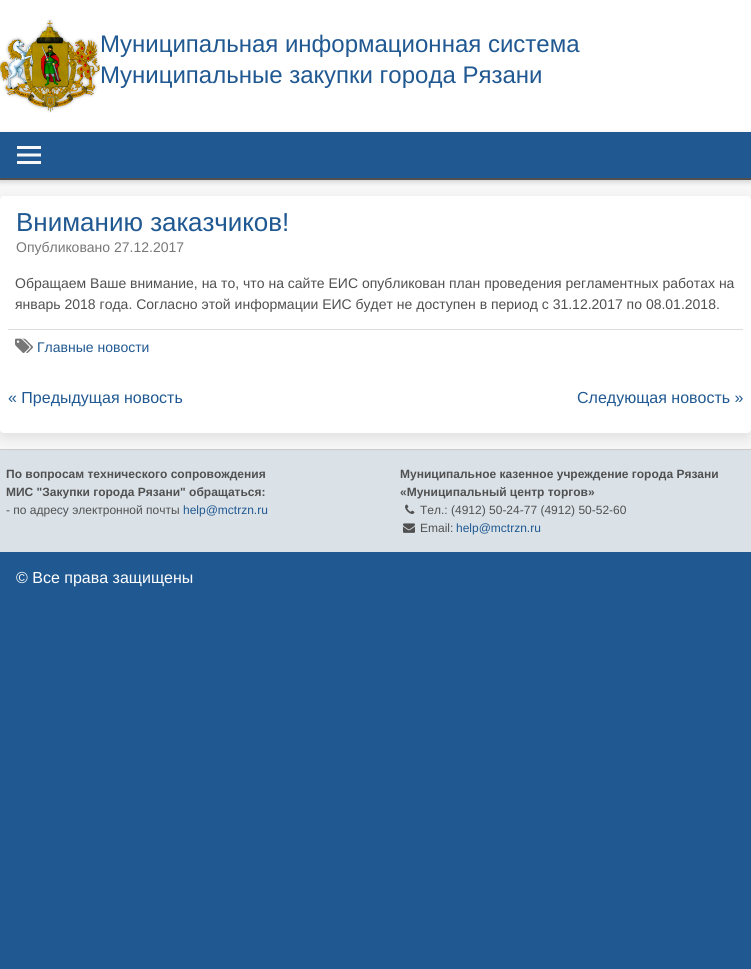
#include <cairo.h>
#include <math.h>
#include <stddef.h>

static cairo_t *ctx;

static void use_color(int r, int g, int b) {
    cairo_set_source_rgb(ctx, r / 255.0, g / 255.0, b / 255.0);
}

static void round_rect(double x, double y, double w, double h, double r) {
    cairo_new_sub_path(ctx);
    cairo_arc(ctx, x + w - r, y + h - r, r, 0, M_PI / 2);
    cairo_arc(ctx, x + r, y + h - r, r, M_PI / 2, M_PI);
    cairo_arc(ctx, x + r, y + r, r, M_PI, 1.5 * M_PI);
    cairo_arc(ctx, x + w - r, y + r, r, 1.5 * M_PI, 2 * M_PI);
    cairo_close_path(ctx);
}

static void shadow(double x, double y, double w, double h, double r, double blur, double alpha) {
    cairo_push_group_with_content(ctx, CAIRO_CONTENT_ALPHA);
    cairo_set_operator(ctx, CAIRO_OPERATOR_SOURCE);
    for (int i = 15; i >= -15 && fmin(w, h) + blur * i / 3 > 0; i -= 2) {
        double e = blur * i / 6;
        cairo_set_source_rgba(ctx, 0, 0, 0, alpha * erfc((i - 1) / 8.5) / 2);
        round_rect(x - e, y - e, w + 2 * e, h + 2 * e, fmax(0, fmin(r + e + blur * .6, fmin(w, h) / 2 + e)));
        cairo_fill(ctx);
    }
    cairo_pattern_t *soft = cairo_pop_group(ctx);
    cairo_mask(ctx, soft);
    cairo_pattern_destroy(soft);
}

static void picture(const char *path, double x, double y, double w, double h) {
    cairo_surface_t *image = cairo_image_surface_create_from_png(path);
    cairo_save(ctx);
    cairo_set_source_surface(ctx, image, x, y);
    cairo_rectangle(ctx, x, y, w, h);
    cairo_fill(ctx);
    cairo_restore(ctx);
    cairo_surface_destroy(image);
}

int main(void) {
    cairo_surface_t *surface = cairo_image_surface_create(CAIRO_FORMAT_RGB24, 751, 969);
    ctx = cairo_create(surface);
    cairo_font_options_t *options = cairo_font_options_create();
    cairo_font_options_set_hint_metrics(options, CAIRO_HINT_METRICS_OFF);
    cairo_font_options_set_hint_style(options, CAIRO_HINT_STYLE_NONE);
    cairo_set_font_options(ctx, options);
    cairo_set_miter_limit(ctx, 4);
    use_color(32, 88, 145);
    cairo_paint(ctx);
    use_color(248, 248, 248);
    cairo_rectangle(ctx, 0, 180, 751, 269);
    cairo_fill(ctx);
    use_color(255, 255, 255);
    cairo_rectangle(ctx, 0, 0, 751, 132);
    cairo_fill(ctx);
    picture("img1.png", 0, 19, 100, 94);
    cairo_select_font_face(ctx, "Liberation Sans", CAIRO_FONT_SLANT_NORMAL, CAIRO_FONT_WEIGHT_NORMAL);
    cairo_set_font_size(ctx, 24);
    use_color(32, 88, 145);
    cairo_move_to(ctx, 100, 52);
    cairo_show_text(ctx, "Муниципальная информационная система");
    cairo_move_to(ctx, 100, 83);
    cairo_show_text(ctx, "Муниципальные закупки города Рязани");
    use_color(72, 70, 70);
    shadow(0, 134, 751, 48, 0, 2.5, 0.24);
    use_color(239, 235, 235);
    shadow(0, 134, 751, 48, 0, 2.5, 0.16);
    use_color(32, 88, 145);
    cairo_rectangle(ctx, 0, 132, 751, 46);
    cairo_fill(ctx);
    use_color(80, 80, 80);
    cairo_rectangle(ctx, 0, 178, 751, 2);
    cairo_fill(ctx);
    picture("img2.png", 17, 146, 24, 18);
    use_color(218, 226, 232);
    cairo_rectangle(ctx, 0, 450, 751, 102);
    cairo_fill(ctx);
    use_color(204, 204, 204);
    cairo_rectangle(ctx, 0, 449, 751, 1);
    cairo_fill(ctx);
    use_color(0, 0, 0);
    shadow(0, 201, 751, 237, 4, 7.5, 0.1);
    use_color(255, 255, 255);
    round_rect(0, 196, 751, 237, 4);
    cairo_fill(ctx);
    cairo_set_font_size(ctx, 26);
    use_color(32, 88, 145);
    cairo_move_to(ctx, 16, 231);
    cairo_show_text(ctx, "Вниманию заказчиков!");
    cairo_set_font_size(ctx, 14);
    use_color(119, 119, 119);
    cairo_move_to(ctx, 16, 252);
    cairo_show_text(ctx, "Опубликовано 27.12.2017");
    use_color(80, 80, 80);
    cairo_move_to(ctx, 15, 288);
    cairo_show_text(ctx, "Обращаем Ваше внимание, на то, что на сайте ЕИС опубликован план проведения регламентных работах на");
    cairo_move_to(ctx, 15, 309);
    cairo_show_text(ctx, "январь 2018 года. Согласно этой информации ЕИС будет не доступен в период с 31.12.2017 по 08.01.2018.");
    use_color(221, 221, 221);
    cairo_rectangle(ctx, 8, 329, 735, 1);
    cairo_fill(ctx);
    picture("img3.png", 15, 338, 18, 15);
    use_color(32, 88, 145);
    cairo_move_to(ctx, 37, 352);
    cairo_show_text(ctx, "Главные новости");
    cairo_set_font_size(ctx, 16);
    cairo_move_to(ctx, 8, 403);
    cairo_show_text(ctx, "« Предыдущая новость");
    cairo_move_to(ctx, 577, 403);
    cairo_show_text(ctx, "Следующая новость »");
    cairo_select_font_face(ctx, "Liberation Sans", CAIRO_FONT_SLANT_NORMAL, CAIRO_FONT_WEIGHT_BOLD);
    cairo_set_font_size(ctx, 12);
    use_color(80, 80, 80);
    cairo_move_to(ctx, 6, 478);
    cairo_show_text(ctx, "По вопросам технического сопровождения");
    cairo_move_to(ctx, 6, 496);
    cairo_show_text(ctx, "МИС \"Закупки города Рязани\" обращаться:");
    cairo_select_font_face(ctx, "Liberation Sans", CAIRO_FONT_SLANT_NORMAL, CAIRO_FONT_WEIGHT_NORMAL);
    cairo_move_to(ctx, 6, 514);
    cairo_show_text(ctx, "- по адресу электронной почты");
    use_color(32, 88, 145);
    cairo_move_to(ctx, 183, 514);
    cairo_show_text(ctx, "help@mctrzn.ru");
    cairo_select_font_face(ctx, "Liberation Sans", CAIRO_FONT_SLANT_NORMAL, CAIRO_FONT_WEIGHT_BOLD);
    use_color(80, 80, 80);
    cairo_move_to(ctx, 400, 478);
    cairo_show_text(ctx, "Муниципальное казенное учреждение города Рязани");
    cairo_move_to(ctx, 400, 496);
    cairo_show_text(ctx, "«Муниципальный центр торгов»");
    picture("img4.png", 405, 504, 10, 10);
    cairo_select_font_face(ctx, "Liberation Sans", CAIRO_FONT_SLANT_NORMAL, CAIRO_FONT_WEIGHT_NORMAL);
    cairo_move_to(ctx, 420, 514);
    cairo_show_text(ctx, "Тел.: (4912) 50-24-77 (4912) 50-52-60");
    picture("img5.png", 403, 523, 12, 10);
    cairo_move_to(ctx, 420, 532);
    cairo_show_text(ctx, "Email:");
    use_color(32, 88, 145);
    cairo_move_to(ctx, 456, 532);
    cairo_show_text(ctx, "help@mctrzn.ru");
    cairo_set_font_size(ctx, 16);
    use_color(255, 255, 255);
    cairo_move_to(ctx, 16, 583);
    cairo_show_text(ctx, "© Все права защищены");
    cairo_surface_write_to_png(surface, "result.png");
    cairo_font_options_destroy(options);
    cairo_destroy(ctx);
    cairo_surface_destroy(surface);
    return 0;
}
